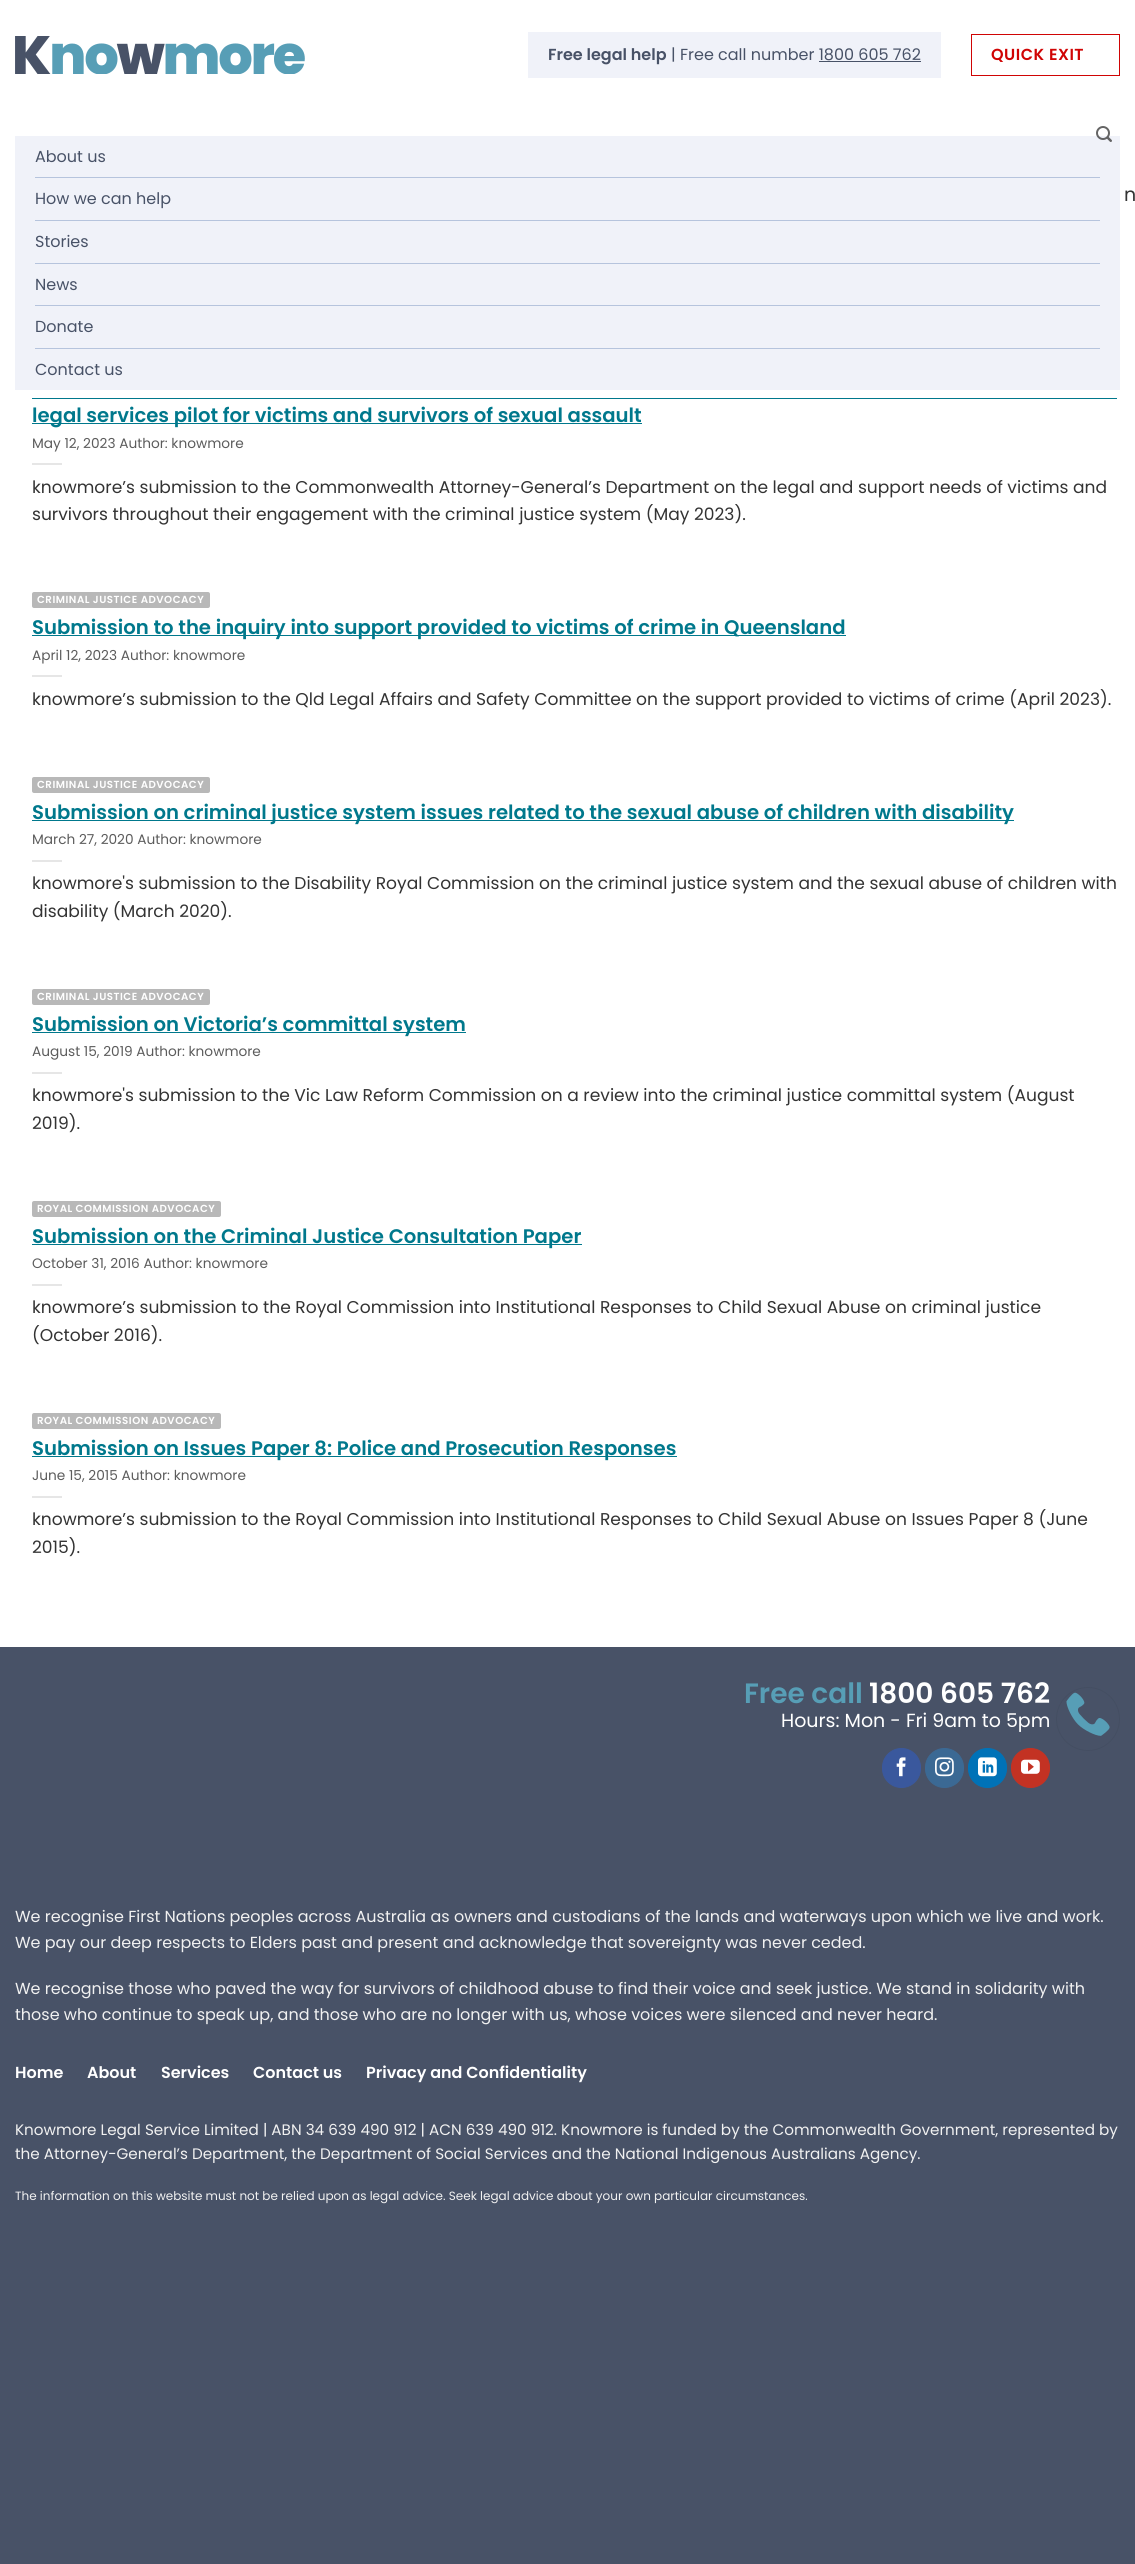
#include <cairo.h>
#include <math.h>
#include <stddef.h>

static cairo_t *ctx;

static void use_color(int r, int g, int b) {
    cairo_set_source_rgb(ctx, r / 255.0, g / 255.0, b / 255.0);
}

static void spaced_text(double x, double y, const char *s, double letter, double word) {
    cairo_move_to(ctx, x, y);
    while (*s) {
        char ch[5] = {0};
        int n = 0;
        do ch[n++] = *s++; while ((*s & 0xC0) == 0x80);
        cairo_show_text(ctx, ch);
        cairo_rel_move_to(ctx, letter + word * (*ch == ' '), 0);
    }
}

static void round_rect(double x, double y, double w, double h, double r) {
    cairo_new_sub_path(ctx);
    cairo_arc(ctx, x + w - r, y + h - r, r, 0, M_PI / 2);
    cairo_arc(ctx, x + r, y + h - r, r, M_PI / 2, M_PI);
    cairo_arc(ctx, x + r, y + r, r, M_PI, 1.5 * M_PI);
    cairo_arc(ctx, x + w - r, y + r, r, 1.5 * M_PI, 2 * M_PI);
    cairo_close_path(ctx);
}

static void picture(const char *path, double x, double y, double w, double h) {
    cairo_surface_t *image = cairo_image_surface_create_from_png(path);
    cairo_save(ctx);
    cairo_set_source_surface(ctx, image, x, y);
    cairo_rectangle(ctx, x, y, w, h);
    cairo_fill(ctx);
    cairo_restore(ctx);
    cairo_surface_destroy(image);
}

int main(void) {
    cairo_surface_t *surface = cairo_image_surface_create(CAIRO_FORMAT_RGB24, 1135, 2564);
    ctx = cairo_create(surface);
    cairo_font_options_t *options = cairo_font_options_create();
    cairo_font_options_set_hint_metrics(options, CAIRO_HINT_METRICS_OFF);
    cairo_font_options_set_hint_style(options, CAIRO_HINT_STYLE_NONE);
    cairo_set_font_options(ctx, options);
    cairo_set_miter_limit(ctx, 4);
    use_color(72, 82, 103);
    cairo_paint(ctx);
    use_color(255, 255, 255);
    cairo_rectangle(ctx, 0, 0, 1135, 1647);
    cairo_fill(ctx);
    picture("img1.png", 15, 36, 290, 38);
    use_color(240, 242, 249);
    cairo_rectangle(ctx, 528, 32, 413, 46);
    cairo_fill(ctx);
    cairo_select_font_face(ctx, "Poppins SemiBold", CAIRO_FONT_SLANT_NORMAL, CAIRO_FONT_WEIGHT_NORMAL);
    cairo_set_font_size(ctx, 16);
    use_color(72, 82, 103);
    cairo_move_to(ctx, 548, 60);
    cairo_show_text(ctx, "Free legal help");
    cairo_select_font_face(ctx, "Poppins", CAIRO_FONT_SLANT_NORMAL, CAIRO_FONT_WEIGHT_NORMAL);
    cairo_move_to(ctx, 671, 60);
    cairo_show_text(ctx, "| Free call number 1800 605 762");
    cairo_rectangle(ctx, 819, 61, 102, 1);
    cairo_fill(ctx);
    cairo_rectangle(ctx, 971.5, 34.5, 148, 41);
    use_color(208, 4, 4);
    cairo_set_line_width(ctx, 1);
    cairo_stroke(ctx);
    cairo_select_font_face(ctx, "Poppins SemiBold", CAIRO_FONT_SLANT_NORMAL, CAIRO_FONT_WEIGHT_NORMAL);
    spaced_text(991, 60, "QUICK EXIT", 0.5, 0);
    use_color(240, 242, 249);
    cairo_rectangle(ctx, 15, 136, 1105, 254);
    cairo_fill(ctx);
    picture("img2.png", 1096, 126, 16, 16);
    use_color(182, 196, 221);
    cairo_rectangle(ctx, 35, 177, 1065, 1);
    cairo_fill(ctx);
    cairo_select_font_face(ctx, "Poppins", CAIRO_FONT_SLANT_NORMAL, CAIRO_FONT_WEIGHT_NORMAL);
    use_color(72, 82, 103);
    cairo_move_to(ctx, 35, 162);
    cairo_show_text(ctx, "About us");
    use_color(182, 196, 221);
    cairo_rectangle(ctx, 35, 220, 1065, 1);
    cairo_fill(ctx);
    use_color(72, 82, 103);
    cairo_move_to(ctx, 35, 204);
    cairo_show_text(ctx, "How we can help");
    use_color(182, 196, 221);
    cairo_rectangle(ctx, 35, 263, 1065, 1);
    cairo_fill(ctx);
    use_color(72, 82, 103);
    cairo_move_to(ctx, 35, 247);
    cairo_show_text(ctx, "Stories");
    use_color(182, 196, 221);
    cairo_rectangle(ctx, 35, 305, 1065, 1);
    cairo_fill(ctx);
    use_color(72, 82, 103);
    cairo_move_to(ctx, 35, 290);
    cairo_show_text(ctx, "News");
    use_color(182, 196, 221);
    cairo_rectangle(ctx, 35, 348, 1065, 1);
    cairo_fill(ctx);
    use_color(72, 82, 103);
    cairo_move_to(ctx, 35, 332);
    cairo_show_text(ctx, "Donate");
    cairo_move_to(ctx, 35, 375);
    cairo_show_text(ctx, "Contact us");
    cairo_set_font_size(ctx, 19);
    use_color(51, 51, 51);
    cairo_move_to(ctx, 1124, 201);
    cairo_show_text(ctx, "n");
    use_color(0, 120, 140);
    cairo_rectangle(ctx, 32, 423, 610, 1);
    cairo_fill(ctx);
    cairo_select_font_face(ctx, "Poppins SemiBold", CAIRO_FONT_SLANT_NORMAL, CAIRO_FONT_WEIGHT_NORMAL);
    cairo_set_font_size(ctx, 19.65);
    cairo_move_to(ctx, 32, 422);
    cairo_show_text(ctx, "legal services pilot for victims and survivors of sexual assault");
    cairo_rectangle(ctx, 32, 398, 1085, 1);
    cairo_fill(ctx);
    cairo_select_font_face(ctx, "Poppins", CAIRO_FONT_SLANT_NORMAL, CAIRO_FONT_WEIGHT_NORMAL);
    cairo_set_font_size(ctx, 13.7);
    use_color(92, 92, 92);
    cairo_move_to(ctx, 32, 448);
    cairo_show_text(ctx, "May 12, 2023 Author: knowmore");
    use_color(230, 230, 230);
    cairo_rectangle(ctx, 32, 463, 30, 2);
    cairo_fill(ctx);
    cairo_set_font_size(ctx, 17.1);
    use_color(51, 51, 51);
    cairo_move_to(ctx, 32, 493);
    cairo_show_text(ctx, "knowmore’s submission to the Commonwealth Attorney-General’s Department on the legal and support needs of victims and");
    cairo_move_to(ctx, 32, 520);
    cairo_show_text(ctx, "survivors throughout their engagement with the criminal justice system (May 2023).");
    use_color(184, 184, 184);
    round_rect(32, 592, 178, 16, 2);
    cairo_fill(ctx);
    cairo_select_font_face(ctx, "Poppins SemiBold", CAIRO_FONT_SLANT_NORMAL, CAIRO_FONT_WEIGHT_NORMAL);
    cairo_set_font_size(ctx, 10.25);
    use_color(255, 255, 255);
    spaced_text(37, 603, "CRIMINAL JUSTICE ADVOCACY", 0.5, 0);
    use_color(0, 120, 140);
    cairo_rectangle(ctx, 32, 635, 814, 1);
    cairo_fill(ctx);
    cairo_set_font_size(ctx, 19.65);
    cairo_move_to(ctx, 32, 634);
    cairo_show_text(ctx, "Submission to the inquiry into support provided to victims of crime in Queensland");
    cairo_select_font_face(ctx, "Poppins", CAIRO_FONT_SLANT_NORMAL, CAIRO_FONT_WEIGHT_NORMAL);
    cairo_set_font_size(ctx, 13.7);
    use_color(92, 92, 92);
    cairo_move_to(ctx, 32, 660);
    cairo_show_text(ctx, "April 12, 2023 Author: knowmore");
    use_color(230, 230, 230);
    cairo_rectangle(ctx, 32, 675, 30, 2);
    cairo_fill(ctx);
    cairo_set_font_size(ctx, 17.1);
    use_color(51, 51, 51);
    cairo_move_to(ctx, 32, 705);
    cairo_show_text(ctx, "knowmore’s submission to the Qld Legal Affairs and Safety Committee on the support provided to victims of crime (April 2023).");
    use_color(184, 184, 184);
    round_rect(32, 777, 178, 16, 2);
    cairo_fill(ctx);
    cairo_select_font_face(ctx, "Poppins SemiBold", CAIRO_FONT_SLANT_NORMAL, CAIRO_FONT_WEIGHT_NORMAL);
    cairo_set_font_size(ctx, 10.25);
    use_color(255, 255, 255);
    spaced_text(37, 788, "CRIMINAL JUSTICE ADVOCACY", 0.5, 0);
    use_color(0, 120, 140);
    cairo_rectangle(ctx, 32, 820, 982, 1);
    cairo_fill(ctx);
    cairo_set_font_size(ctx, 19.65);
    cairo_move_to(ctx, 32, 819);
    cairo_show_text(ctx, "Submission on criminal justice system issues related to the sexual abuse of children with disability");
    cairo_select_font_face(ctx, "Poppins", CAIRO_FONT_SLANT_NORMAL, CAIRO_FONT_WEIGHT_NORMAL);
    cairo_set_font_size(ctx, 13.7);
    use_color(92, 92, 92);
    cairo_move_to(ctx, 32, 844);
    cairo_show_text(ctx, "March 27, 2020 Author: knowmore");
    use_color(230, 230, 230);
    cairo_rectangle(ctx, 32, 860, 30, 2);
    cairo_fill(ctx);
    cairo_set_font_size(ctx, 17.1);
    use_color(51, 51, 51);
    cairo_move_to(ctx, 32, 889);
    cairo_show_text(ctx, "knowmore's submission to the Disability Royal Commission on the criminal justice system and the sexual abuse of children with");
    cairo_move_to(ctx, 32, 917);
    cairo_show_text(ctx, "disability (March 2020).");
    use_color(184, 184, 184);
    round_rect(32, 989, 178, 16, 2);
    cairo_fill(ctx);
    cairo_select_font_face(ctx, "Poppins SemiBold", CAIRO_FONT_SLANT_NORMAL, CAIRO_FONT_WEIGHT_NORMAL);
    cairo_set_font_size(ctx, 10.25);
    use_color(255, 255, 255);
    spaced_text(37, 1000, "CRIMINAL JUSTICE ADVOCACY", 0.5, 0);
    use_color(0, 120, 140);
    cairo_rectangle(ctx, 32, 1032, 434, 1);
    cairo_fill(ctx);
    cairo_set_font_size(ctx, 19.65);
    cairo_move_to(ctx, 32, 1031);
    cairo_show_text(ctx, "Submission on Victoria’s committal system");
    cairo_select_font_face(ctx, "Poppins", CAIRO_FONT_SLANT_NORMAL, CAIRO_FONT_WEIGHT_NORMAL);
    cairo_set_font_size(ctx, 13.7);
    use_color(92, 92, 92);
    cairo_move_to(ctx, 32, 1056);
    cairo_show_text(ctx, "August 15, 2019 Author: knowmore");
    use_color(230, 230, 230);
    cairo_rectangle(ctx, 32, 1072, 30, 2);
    cairo_fill(ctx);
    cairo_set_font_size(ctx, 17.1);
    use_color(51, 51, 51);
    cairo_move_to(ctx, 32, 1101);
    cairo_show_text(ctx, "knowmore's submission to the Vic Law Reform Commission on a review into the criminal justice committal system (August");
    cairo_move_to(ctx, 32, 1129);
    cairo_show_text(ctx, "2019).");
    use_color(184, 184, 184);
    round_rect(32, 1201, 189, 16, 2);
    cairo_fill(ctx);
    cairo_select_font_face(ctx, "Poppins SemiBold", CAIRO_FONT_SLANT_NORMAL, CAIRO_FONT_WEIGHT_NORMAL);
    cairo_set_font_size(ctx, 10.25);
    use_color(255, 255, 255);
    spaced_text(37, 1212, "ROYAL COMMISSION ADVOCACY", 0.5, 0);
    use_color(0, 120, 140);
    cairo_rectangle(ctx, 32, 1244, 550, 1);
    cairo_fill(ctx);
    cairo_set_font_size(ctx, 19.65);
    cairo_move_to(ctx, 32, 1243);
    cairo_show_text(ctx, "Submission on the Criminal Justice Consultation Paper");
    cairo_select_font_face(ctx, "Poppins", CAIRO_FONT_SLANT_NORMAL, CAIRO_FONT_WEIGHT_NORMAL);
    cairo_set_font_size(ctx, 13.7);
    use_color(92, 92, 92);
    cairo_move_to(ctx, 32, 1268);
    cairo_show_text(ctx, "October 31, 2016 Author: knowmore");
    use_color(230, 230, 230);
    cairo_rectangle(ctx, 32, 1284, 30, 2);
    cairo_fill(ctx);
    cairo_set_font_size(ctx, 17.1);
    use_color(51, 51, 51);
    cairo_move_to(ctx, 32, 1313);
    cairo_show_text(ctx, "knowmore’s submission to the Royal Commission into Institutional Responses to Child Sexual Abuse on criminal justice");
    cairo_move_to(ctx, 32, 1341);
    cairo_show_text(ctx, "(October 2016).");
    use_color(184, 184, 184);
    round_rect(32, 1413, 189, 16, 2);
    cairo_fill(ctx);
    cairo_select_font_face(ctx, "Poppins SemiBold", CAIRO_FONT_SLANT_NORMAL, CAIRO_FONT_WEIGHT_NORMAL);
    cairo_set_font_size(ctx, 10.25);
    use_color(255, 255, 255);
    spaced_text(37, 1424, "ROYAL COMMISSION ADVOCACY", 0.5, 0);
    use_color(0, 120, 140);
    cairo_rectangle(ctx, 32, 1456, 645, 1);
    cairo_fill(ctx);
    cairo_set_font_size(ctx, 19.65);
    cairo_move_to(ctx, 32, 1455);
    cairo_show_text(ctx, "Submission on Issues Paper 8: Police and Prosecution Responses");
    cairo_select_font_face(ctx, "Poppins", CAIRO_FONT_SLANT_NORMAL, CAIRO_FONT_WEIGHT_NORMAL);
    cairo_set_font_size(ctx, 13.7);
    use_color(92, 92, 92);
    cairo_move_to(ctx, 32, 1480);
    cairo_show_text(ctx, "June 15, 2015 Author: knowmore");
    use_color(230, 230, 230);
    cairo_rectangle(ctx, 32, 1496, 30, 2);
    cairo_fill(ctx);
    cairo_set_font_size(ctx, 17.1);
    use_color(51, 51, 51);
    cairo_move_to(ctx, 32, 1525);
    cairo_show_text(ctx, "knowmore’s submission to the Royal Commission into Institutional Responses to Child Sexual Abuse on Issues Paper 8 (June");
    cairo_move_to(ctx, 32, 1553);
    cairo_show_text(ctx, "2015).");
    cairo_select_font_face(ctx, "Poppins SemiBold", CAIRO_FONT_SLANT_NORMAL, CAIRO_FONT_WEIGHT_NORMAL);
    cairo_set_font_size(ctx, 28);
    use_color(87, 158, 182);
    cairo_move_to(ctx, 744, 1703);
    cairo_show_text(ctx, "Free call");
    use_color(255, 255, 255);
    cairo_move_to(ctx, 869, 1703);
    cairo_show_text(ctx, "1800 605 762");
    cairo_new_path(ctx);
    cairo_arc(ctx, 1088, 1719, 31.5, 0, 2 * M_PI);
    use_color(68, 78, 98);
    cairo_stroke(ctx);
    picture("img3.png", 1066, 1692, 44, 44);
    cairo_select_font_face(ctx, "Poppins", CAIRO_FONT_SLANT_NORMAL, CAIRO_FONT_WEIGHT_NORMAL);
    cairo_set_font_size(ctx, 19);
    use_color(255, 255, 255);
    cairo_move_to(ctx, 781, 1727);
    cairo_show_text(ctx, "Hours: Mon - Fri 9am to 5pm");
    use_color(58, 88, 157);
    round_rect(882.5, 1748.5, 38, 39, 19);
    cairo_fill_preserve(ctx);
    cairo_stroke(ctx);
    picture("img4.png", 896, 1757, 10, 20);
    use_color(59, 105, 148);
    round_rect(925.5, 1748.5, 38, 39, 19);
    cairo_fill_preserve(ctx);
    cairo_stroke(ctx);
    picture("img5.png", 935, 1757, 19, 20);
    use_color(0, 114, 183);
    round_rect(968.5, 1748.5, 38, 39, 19);
    cairo_fill_preserve(ctx);
    cairo_stroke(ctx);
    picture("img6.png", 978, 1757, 19, 20);
    use_color(195, 50, 35);
    round_rect(1011.5, 1748.5, 38, 39, 19);
    cairo_fill_preserve(ctx);
    cairo_stroke(ctx);
    picture("img7.png", 1021, 1759, 19, 15);
    cairo_set_font_size(ctx, 16);
    use_color(241, 241, 241);
    cairo_move_to(ctx, 15, 1922);
    cairo_show_text(ctx, "We recognise First Nations peoples across Australia as owners and custodians of the lands and waterways upon which we live and work.");
    cairo_move_to(ctx, 15, 1948);
    cairo_show_text(ctx, "We pay our deep respects to Elders past and present and acknowledge that sovereignty was never ceded.");
    cairo_move_to(ctx, 15, 1994);
    cairo_show_text(ctx, "We recognise those who paved the way for survivors of childhood abuse to find their voice and seek justice. We stand in solidarity with");
    cairo_move_to(ctx, 15, 2020);
    cairo_show_text(ctx, "those who continue to speak up, and those who are no longer with us, whose voices were silenced and never heard.");
    cairo_select_font_face(ctx, "Poppins SemiBold", CAIRO_FONT_SLANT_NORMAL, CAIRO_FONT_WEIGHT_NORMAL);
    use_color(255, 255, 255);
    cairo_move_to(ctx, 15, 2078);
    cairo_show_text(ctx, "Home");
    cairo_move_to(ctx, 87, 2078);
    cairo_show_text(ctx, "About");
    cairo_move_to(ctx, 161, 2078);
    cairo_show_text(ctx, "Services");
    cairo_move_to(ctx, 253, 2078);
    cairo_show_text(ctx, "Contact us");
    cairo_move_to(ctx, 366, 2078);
    cairo_show_text(ctx, "Privacy and Confidentiality");
    cairo_select_font_face(ctx, "Poppins", CAIRO_FONT_SLANT_NORMAL, CAIRO_FONT_WEIGHT_NORMAL);
    cairo_set_font_size(ctx, 15.2);
    use_color(241, 241, 241);
    cairo_move_to(ctx, 15, 2135);
    cairo_show_text(ctx, "Knowmore Legal Service Limited | ABN 34 639 490 912 | ACN 639 490 912. Knowmore is funded by the Commonwealth Government, represented by");
    cairo_move_to(ctx, 15, 2159);
    cairo_show_text(ctx, "the Attorney-General’s Department, the Department of Social Services and the National Indigenous Australians Agency.");
    cairo_set_font_size(ctx, 12);
    cairo_move_to(ctx, 15, 2200);
    cairo_show_text(ctx, "The information on this website must not be relied upon as legal advice. Seek legal advice about your own particular circumstances.");
    cairo_surface_write_to_png(surface, "result.png");
    cairo_font_options_destroy(options);
    cairo_destroy(ctx);
    cairo_surface_destroy(surface);
    return 0;
}
